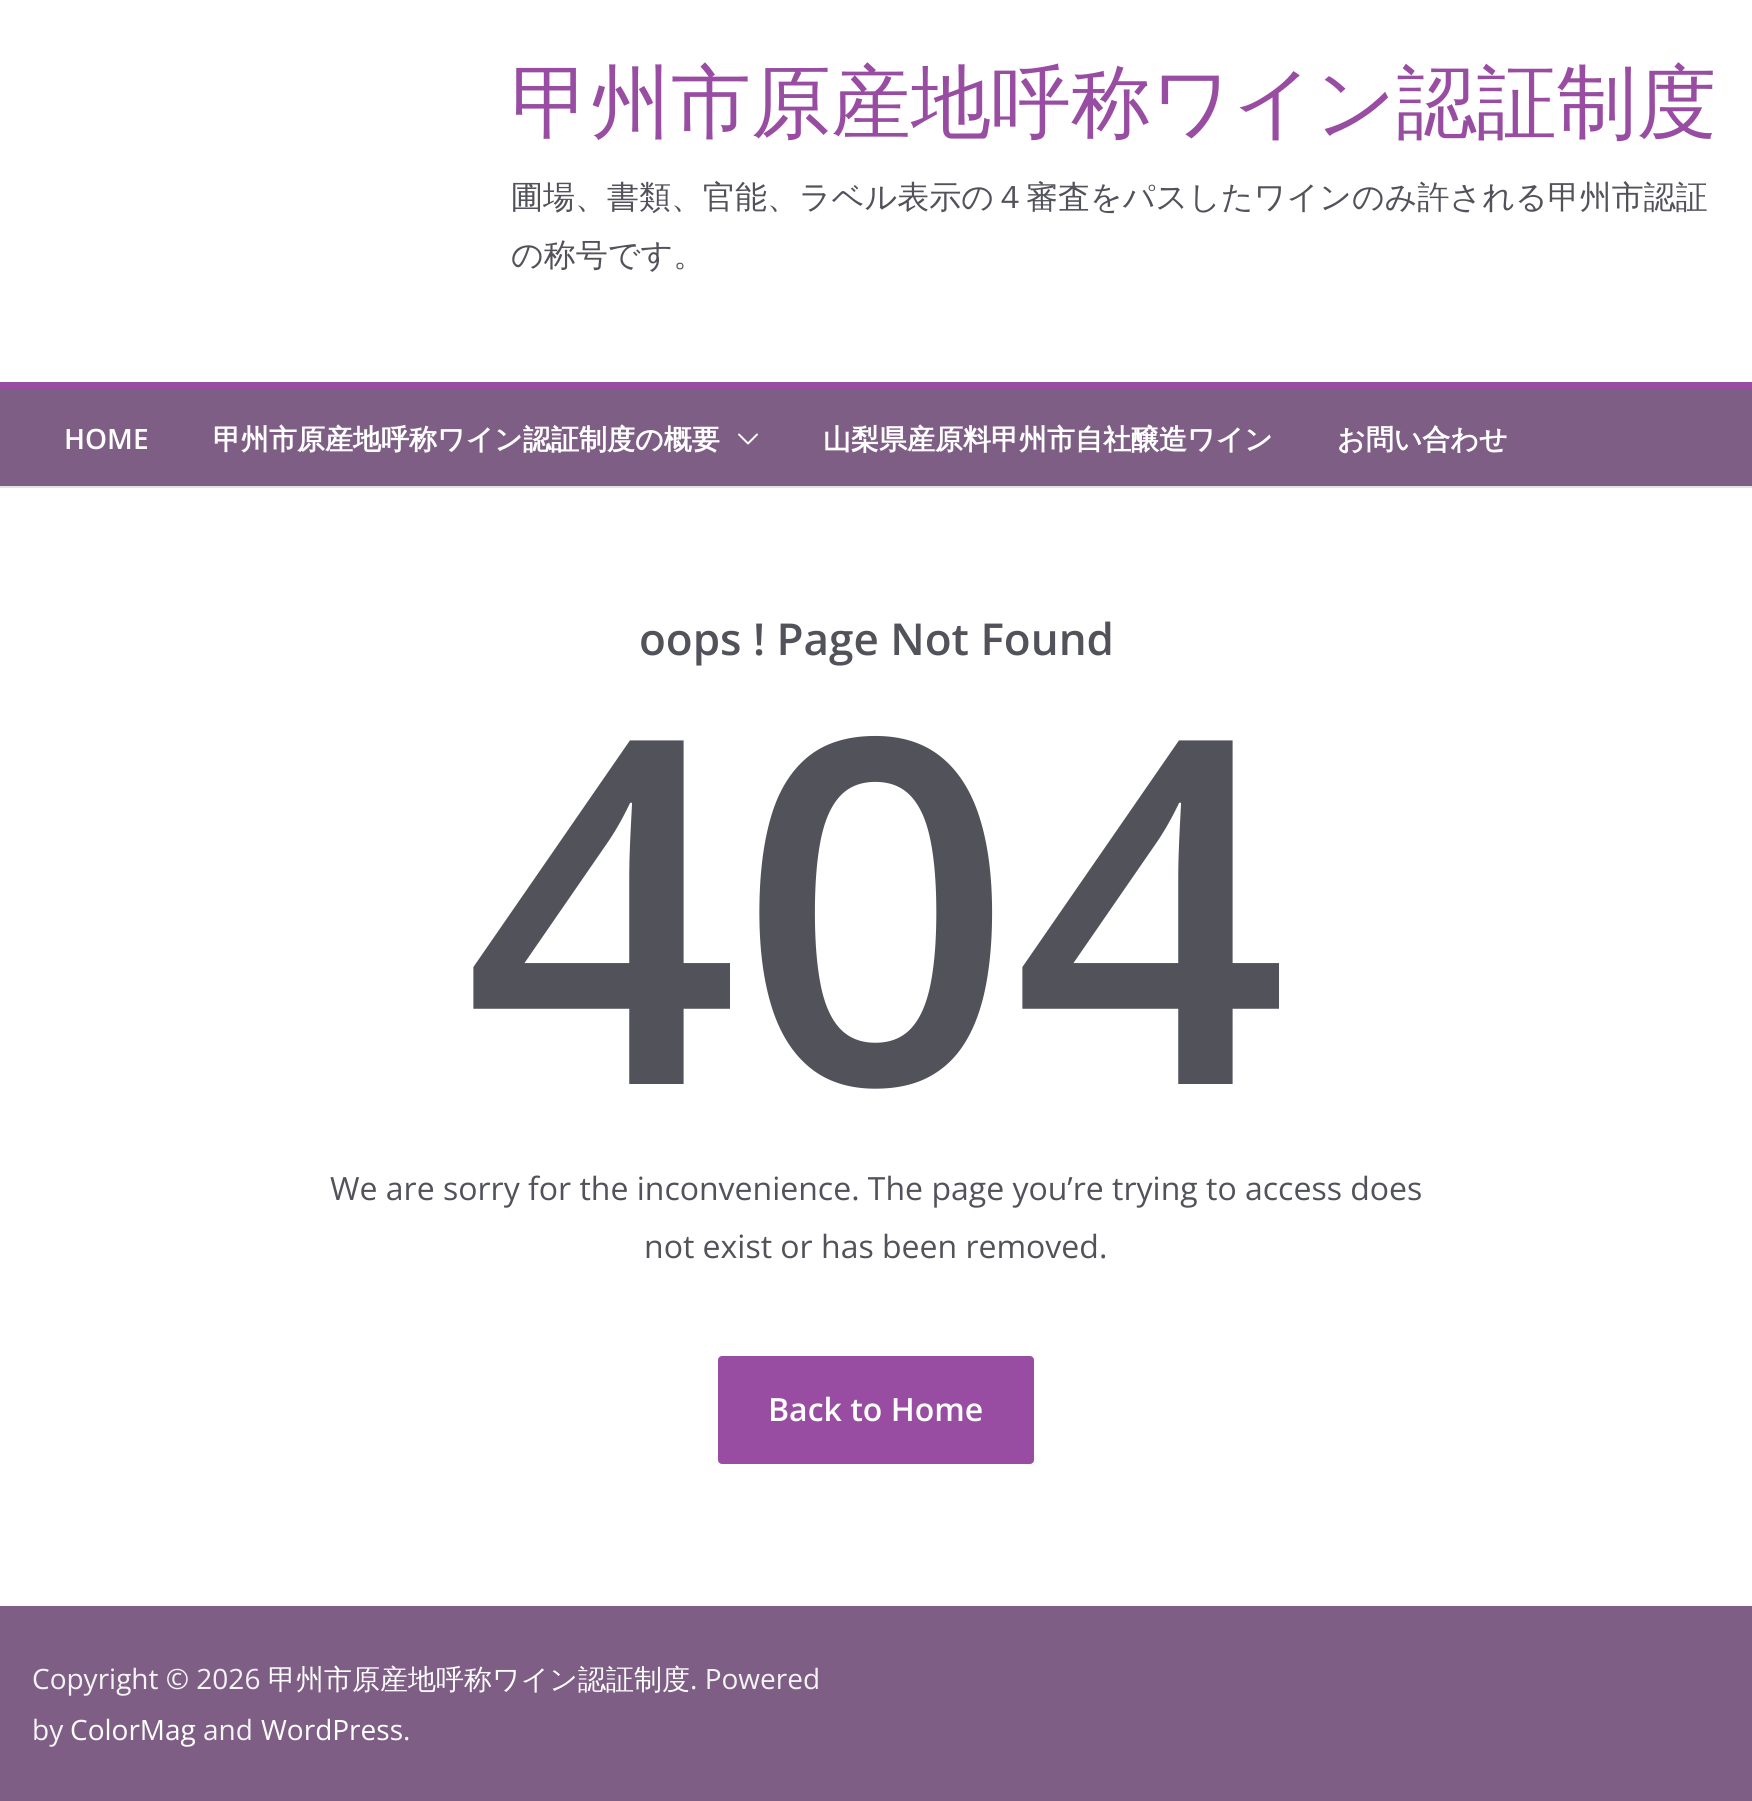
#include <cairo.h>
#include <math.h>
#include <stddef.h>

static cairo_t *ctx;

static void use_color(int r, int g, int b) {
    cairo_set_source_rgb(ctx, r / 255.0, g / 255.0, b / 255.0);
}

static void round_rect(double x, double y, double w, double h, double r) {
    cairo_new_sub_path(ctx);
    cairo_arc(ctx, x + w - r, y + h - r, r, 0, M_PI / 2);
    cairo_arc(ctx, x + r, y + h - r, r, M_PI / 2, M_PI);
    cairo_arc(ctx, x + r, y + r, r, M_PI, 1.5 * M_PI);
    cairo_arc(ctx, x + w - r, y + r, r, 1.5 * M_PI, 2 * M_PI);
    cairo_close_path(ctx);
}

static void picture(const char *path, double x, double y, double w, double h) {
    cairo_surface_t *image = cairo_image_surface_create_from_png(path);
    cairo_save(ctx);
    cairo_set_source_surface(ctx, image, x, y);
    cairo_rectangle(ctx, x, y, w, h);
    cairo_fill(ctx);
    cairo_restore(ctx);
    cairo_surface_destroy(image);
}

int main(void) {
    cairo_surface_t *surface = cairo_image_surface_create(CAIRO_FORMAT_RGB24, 1752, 1801);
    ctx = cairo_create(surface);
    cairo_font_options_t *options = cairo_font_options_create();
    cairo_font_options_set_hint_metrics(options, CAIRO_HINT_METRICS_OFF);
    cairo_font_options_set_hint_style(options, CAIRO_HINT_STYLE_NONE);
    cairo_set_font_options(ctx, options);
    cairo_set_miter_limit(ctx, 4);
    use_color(255, 255, 255);
    cairo_paint(ctx);
    use_color(228, 228, 231);
    cairo_rectangle(ctx, 0, 486, 1752, 2);
    cairo_fill(ctx);
    cairo_select_font_face(ctx, "WenQuanYi Zen Hei Medium", CAIRO_FONT_SLANT_NORMAL, CAIRO_FONT_WEIGHT_NORMAL);
    cairo_set_font_size(ctx, 80);
    use_color(152, 77, 162);
    cairo_move_to(ctx, 511, 130);
    cairo_show_text(ctx, "甲州市原産地呼称ワイン認証制度");
    cairo_set_font_size(ctx, 32);
    use_color(82, 82, 91);
    cairo_move_to(ctx, 511, 208);
    cairo_show_text(ctx, "圃場、書類、官能、ラベル表示の４審査をパスしたワインのみ許される甲州市認証");
    cairo_move_to(ctx, 511, 266);
    cairo_show_text(ctx, "の称号です。");
    use_color(126, 94, 133);
    cairo_rectangle(ctx, 0, 390, 1752, 96);
    cairo_fill(ctx);
    use_color(152, 77, 162);
    cairo_rectangle(ctx, 0, 382, 1752, 8);
    cairo_fill(ctx);
    cairo_select_font_face(ctx, "Open Sans SemiBold", CAIRO_FONT_SLANT_NORMAL, CAIRO_FONT_WEIGHT_NORMAL);
    cairo_set_font_size(ctx, 28);
    use_color(255, 255, 255);
    cairo_move_to(ctx, 64, 449);
    cairo_show_text(ctx, "HOME");
    cairo_select_font_face(ctx, "WenQuanYi Zen Hei", CAIRO_FONT_SLANT_NORMAL, CAIRO_FONT_WEIGHT_BOLD);
    cairo_move_to(ctx, 213, 449);
    cairo_show_text(ctx, "甲州市原産地呼称ワイン認証制度の概要");
    picture("img1.png", 738, 433, 20, 12);
    cairo_move_to(ctx, 823, 449);
    cairo_show_text(ctx, "山梨県産原料甲州市自社醸造ワイン");
    cairo_move_to(ctx, 1337, 449);
    cairo_show_text(ctx, "お問い合わせ");
    cairo_select_font_face(ctx, "Open Sans SemiBold", CAIRO_FONT_SLANT_NORMAL, CAIRO_FONT_WEIGHT_NORMAL);
    cairo_set_font_size(ctx, 44);
    use_color(82, 82, 91);
    cairo_move_to(ctx, 639, 655);
    cairo_show_text(ctx, "oops ! Page Not Found");
    cairo_set_font_size(ctx, 480);
    cairo_move_to(ctx, 464, 1084);
    cairo_show_text(ctx, "404");
    cairo_select_font_face(ctx, "Open Sans", CAIRO_FONT_SLANT_NORMAL, CAIRO_FONT_WEIGHT_NORMAL);
    cairo_set_font_size(ctx, 32);
    cairo_move_to(ctx, 330, 1200);
    cairo_show_text(ctx, "We are sorry for the inconvenience. The page you’re trying to access does");
    cairo_move_to(ctx, 644, 1258);
    cairo_show_text(ctx, "not exist or has been removed.");
    use_color(152, 77, 162);
    round_rect(719, 1357, 314, 106, 3);
    cairo_fill_preserve(ctx);
    cairo_stroke(ctx);
    cairo_select_font_face(ctx, "Open Sans SemiBold", CAIRO_FONT_SLANT_NORMAL, CAIRO_FONT_WEIGHT_NORMAL);
    use_color(255, 255, 255);
    cairo_move_to(ctx, 768, 1421);
    cairo_show_text(ctx, "Back to Home");
    use_color(126, 94, 133);
    cairo_rectangle(ctx, 0, 1606, 1752, 195);
    cairo_fill(ctx);
    cairo_select_font_face(ctx, "Open Sans", CAIRO_FONT_SLANT_NORMAL, CAIRO_FONT_WEIGHT_NORMAL);
    cairo_set_font_size(ctx, 28);
    use_color(244, 244, 245);
    cairo_move_to(ctx, 32, 1689);
    cairo_show_text(ctx, "Copyright © 2026");
    cairo_select_font_face(ctx, "WenQuanYi Zen Hei Medium", CAIRO_FONT_SLANT_NORMAL, CAIRO_FONT_WEIGHT_NORMAL);
    use_color(255, 255, 255);
    cairo_move_to(ctx, 268, 1689);
    cairo_show_text(ctx, "甲州市原産地呼称ワイン認証制度");
    cairo_select_font_face(ctx, "Open Sans", CAIRO_FONT_SLANT_NORMAL, CAIRO_FONT_WEIGHT_NORMAL);
    use_color(244, 244, 245);
    cairo_move_to(ctx, 690, 1689);
    cairo_show_text(ctx, ". Powered");
    cairo_move_to(ctx, 32, 1740);
    cairo_show_text(ctx, "by");
    use_color(255, 255, 255);
    cairo_move_to(ctx, 70, 1740);
    cairo_show_text(ctx, "ColorMag");
    use_color(244, 244, 245);
    cairo_move_to(ctx, 203, 1740);
    cairo_show_text(ctx, "and");
    use_color(255, 255, 255);
    cairo_move_to(ctx, 261, 1740);
    cairo_show_text(ctx, "WordPress");
    use_color(244, 244, 245);
    cairo_move_to(ctx, 403, 1740);
    cairo_show_text(ctx, ".");
    cairo_surface_write_to_png(surface, "result.png");
    cairo_font_options_destroy(options);
    cairo_destroy(ctx);
    cairo_surface_destroy(surface);
    return 0;
}
